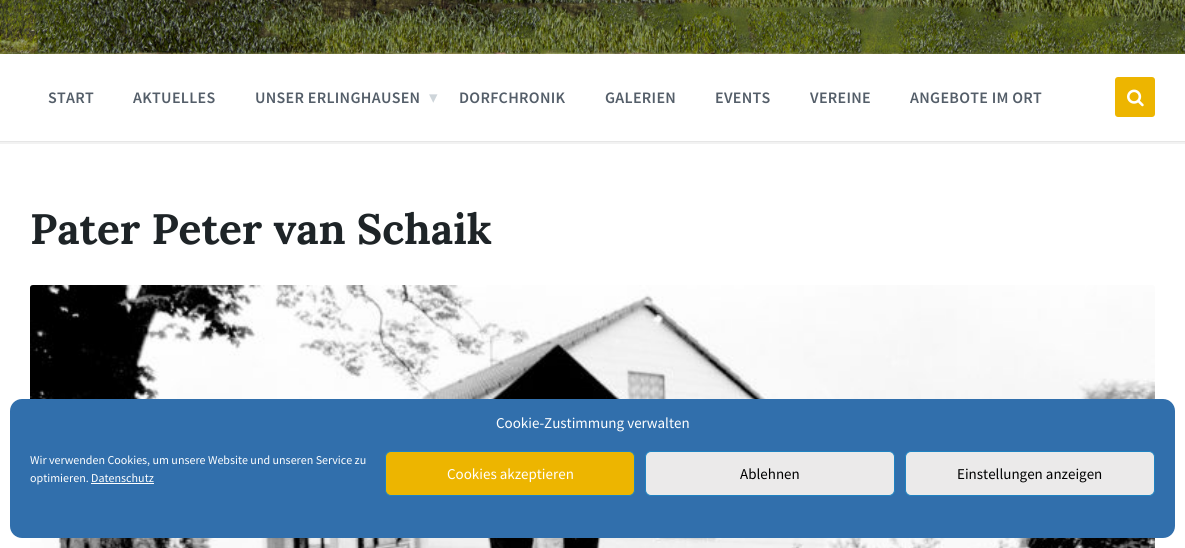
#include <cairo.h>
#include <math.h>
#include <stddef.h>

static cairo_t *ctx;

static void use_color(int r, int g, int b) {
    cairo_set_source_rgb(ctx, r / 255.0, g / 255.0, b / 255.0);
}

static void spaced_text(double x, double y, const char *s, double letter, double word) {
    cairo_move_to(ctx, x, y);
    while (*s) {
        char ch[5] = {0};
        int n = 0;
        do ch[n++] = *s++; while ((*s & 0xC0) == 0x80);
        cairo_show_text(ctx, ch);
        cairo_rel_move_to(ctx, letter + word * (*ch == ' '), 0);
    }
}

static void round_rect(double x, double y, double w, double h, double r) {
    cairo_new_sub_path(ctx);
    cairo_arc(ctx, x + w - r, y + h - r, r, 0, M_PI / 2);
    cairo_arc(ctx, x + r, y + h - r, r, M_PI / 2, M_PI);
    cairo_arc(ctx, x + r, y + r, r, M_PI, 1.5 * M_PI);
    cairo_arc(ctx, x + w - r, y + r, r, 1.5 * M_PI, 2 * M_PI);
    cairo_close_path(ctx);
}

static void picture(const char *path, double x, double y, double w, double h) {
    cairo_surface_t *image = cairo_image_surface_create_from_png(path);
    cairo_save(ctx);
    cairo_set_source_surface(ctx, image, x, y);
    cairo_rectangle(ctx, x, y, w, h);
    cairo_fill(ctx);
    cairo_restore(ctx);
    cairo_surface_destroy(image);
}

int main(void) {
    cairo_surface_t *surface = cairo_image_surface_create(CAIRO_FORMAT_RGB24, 1185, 548);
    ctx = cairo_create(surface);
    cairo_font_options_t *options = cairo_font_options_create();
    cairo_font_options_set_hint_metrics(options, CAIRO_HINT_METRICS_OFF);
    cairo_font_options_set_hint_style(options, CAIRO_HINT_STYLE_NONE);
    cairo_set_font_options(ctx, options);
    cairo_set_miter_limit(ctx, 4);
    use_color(255, 255, 255);
    cairo_paint(ctx);
    cairo_rectangle(ctx, -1, 53, 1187, 90);
    use_color(242, 242, 242);
    cairo_stroke(ctx);
    picture("img1.png", 0, 0, 1185, 54);
    use_color(230, 230, 230);
    cairo_rectangle(ctx, 0, 141, 1185, 1);
    cairo_fill(ctx);
    cairo_select_font_face(ctx, "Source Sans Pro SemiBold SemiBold", CAIRO_FONT_SLANT_NORMAL, CAIRO_FONT_WEIGHT_NORMAL);
    cairo_set_font_size(ctx, 16);
    use_color(84, 94, 105);
    spaced_text(48, 103, "START", 0.3, 0);
    spaced_text(133, 103, "AKTUELLES", 0.3, 0);
    spaced_text(255, 103, "UNSER ERLINGHAUSEN", 0.3, 0);
    cairo_select_font_face(ctx, "DejaVu Sans", CAIRO_FONT_SLANT_NORMAL, CAIRO_FONT_WEIGHT_NORMAL);
    cairo_set_font_size(ctx, 17);
    use_color(206, 213, 218);
    cairo_move_to(ctx, 429, 103);
    cairo_show_text(ctx, "▾");
    cairo_select_font_face(ctx, "Source Sans Pro SemiBold SemiBold", CAIRO_FONT_SLANT_NORMAL, CAIRO_FONT_WEIGHT_NORMAL);
    cairo_set_font_size(ctx, 16);
    use_color(84, 94, 105);
    spaced_text(459, 103, "DORFCHRONIK", 0.3, 0);
    spaced_text(605, 103, "GALERIEN", 0.3, 0);
    spaced_text(715, 103, "EVENTS", 0.3, 0);
    spaced_text(810, 103, "VEREINE", 0.3, 0);
    spaced_text(910, 103, "ANGEBOTE IM ORT", 0.3, 0);
    use_color(237, 181, 0);
    round_rect(1115, 77, 40, 40, 3);
    cairo_fill(ctx);
    picture("img2.png", 1127, 89, 17, 18);
    cairo_select_font_face(ctx, "Lora", CAIRO_FONT_SLANT_NORMAL, CAIRO_FONT_WEIGHT_BOLD);
    cairo_set_font_size(ctx, 42.5);
    use_color(30, 36, 39);
    cairo_move_to(ctx, 30, 244);
    cairo_show_text(ctx, "Pater Peter van Schaik");
    picture("img3.png", 30, 285, 1125, 263);
    use_color(49, 111, 172);
    round_rect(10, 399, 1165, 139, 12);
    cairo_fill(ctx);
    cairo_select_font_face(ctx, "Source Sans Pro", CAIRO_FONT_SLANT_NORMAL, CAIRO_FONT_WEIGHT_NORMAL);
    cairo_set_font_size(ctx, 15);
    use_color(255, 255, 255);
    cairo_move_to(ctx, 496, 428);
    cairo_show_text(ctx, "Cookie-Zustimmung verwalten");
    cairo_set_font_size(ctx, 12);
    cairo_move_to(ctx, 30, 464);
    cairo_show_text(ctx, "Wir verwenden Cookies, um unsere Website und unseren Service zu");
    cairo_move_to(ctx, 30, 482);
    cairo_show_text(ctx, "optimieren. Datenschutz");
    cairo_rectangle(ctx, 91, 483, 63, 1);
    cairo_fill(ctx);
    use_color(237, 181, 0);
    round_rect(385.5, 451.5, 249, 44, 5.5);
    cairo_fill_preserve(ctx);
    use_color(31, 130, 192);
    cairo_set_line_width(ctx, 1);
    cairo_stroke(ctx);
    cairo_set_font_size(ctx, 15);
    use_color(255, 255, 255);
    cairo_move_to(ctx, 447, 479);
    cairo_show_text(ctx, "Cookies akzeptieren");
    use_color(235, 234, 234);
    round_rect(645.5, 451.5, 249, 44, 5.5);
    cairo_fill_preserve(ctx);
    use_color(31, 130, 192);
    cairo_stroke(ctx);
    use_color(0, 0, 0);
    cairo_move_to(ctx, 740, 479);
    cairo_show_text(ctx, "Ablehnen");
    use_color(235, 234, 234);
    round_rect(905.5, 451.5, 249, 44, 5.5);
    cairo_fill_preserve(ctx);
    use_color(31, 130, 192);
    cairo_stroke(ctx);
    use_color(0, 0, 0);
    cairo_move_to(ctx, 957, 479);
    cairo_show_text(ctx, "Einstellungen anzeigen");
    cairo_surface_write_to_png(surface, "result.png");
    cairo_font_options_destroy(options);
    cairo_destroy(ctx);
    cairo_surface_destroy(surface);
    return 0;
}
